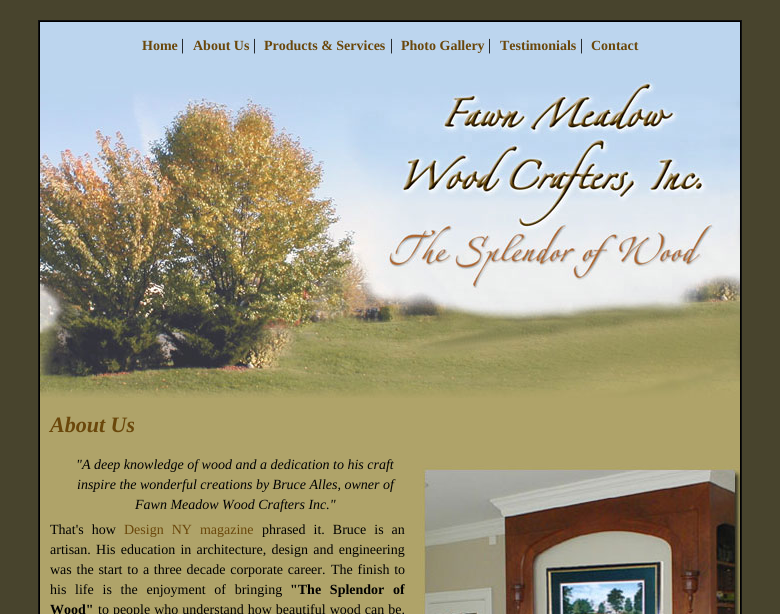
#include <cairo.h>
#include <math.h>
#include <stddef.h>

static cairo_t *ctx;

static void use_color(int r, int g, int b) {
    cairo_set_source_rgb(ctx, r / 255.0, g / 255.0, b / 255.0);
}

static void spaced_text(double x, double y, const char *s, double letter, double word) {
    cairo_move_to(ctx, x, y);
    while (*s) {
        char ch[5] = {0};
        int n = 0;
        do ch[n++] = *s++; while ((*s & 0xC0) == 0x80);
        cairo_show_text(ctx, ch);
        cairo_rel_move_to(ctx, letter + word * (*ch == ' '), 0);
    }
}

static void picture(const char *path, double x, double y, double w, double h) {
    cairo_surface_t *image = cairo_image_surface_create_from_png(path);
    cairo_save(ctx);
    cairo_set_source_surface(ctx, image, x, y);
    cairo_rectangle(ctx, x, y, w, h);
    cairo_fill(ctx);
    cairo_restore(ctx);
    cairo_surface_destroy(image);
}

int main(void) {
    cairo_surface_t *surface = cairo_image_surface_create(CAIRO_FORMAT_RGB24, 780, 614);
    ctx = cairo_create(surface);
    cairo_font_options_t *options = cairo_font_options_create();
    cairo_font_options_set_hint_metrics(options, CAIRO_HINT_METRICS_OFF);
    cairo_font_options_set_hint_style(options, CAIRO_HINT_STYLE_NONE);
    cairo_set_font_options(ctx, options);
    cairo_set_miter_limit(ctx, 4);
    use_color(72, 68, 45);
    cairo_paint(ctx);
    use_color(0, 0, 0);
    cairo_rectangle(ctx, 39, 21, 702, 593);
    cairo_fill(ctx);
    use_color(17, 17, 17);
    cairo_rectangle(ctx, 38, 20, 704, 1);
    cairo_fill(ctx);
    cairo_rectangle(ctx, 741, 20, 1, 594);
    cairo_fill(ctx);
    cairo_rectangle(ctx, 38, 20, 1, 594);
    cairo_fill(ctx);
    use_color(188, 213, 238);
    cairo_rectangle(ctx, 40, 22, 700, 48);
    cairo_fill(ctx);
    cairo_select_font_face(ctx, "Liberation Serif", CAIRO_FONT_SLANT_NORMAL, CAIRO_FONT_WEIGHT_BOLD);
    cairo_set_font_size(ctx, 14);
    use_color(106, 71, 10);
    cairo_move_to(ctx, 142, 50);
    cairo_show_text(ctx, "Home");
    cairo_select_font_face(ctx, "Liberation Serif", CAIRO_FONT_SLANT_NORMAL, CAIRO_FONT_WEIGHT_NORMAL);
    cairo_set_font_size(ctx, 16);
    use_color(0, 0, 0);
    cairo_move_to(ctx, 181, 50);
    cairo_show_text(ctx, "|");
    cairo_select_font_face(ctx, "Liberation Serif", CAIRO_FONT_SLANT_NORMAL, CAIRO_FONT_WEIGHT_BOLD);
    cairo_set_font_size(ctx, 14);
    use_color(106, 71, 10);
    cairo_move_to(ctx, 193, 50);
    cairo_show_text(ctx, "About Us");
    cairo_select_font_face(ctx, "Liberation Serif", CAIRO_FONT_SLANT_NORMAL, CAIRO_FONT_WEIGHT_NORMAL);
    cairo_set_font_size(ctx, 16);
    use_color(0, 0, 0);
    cairo_move_to(ctx, 253, 50);
    cairo_show_text(ctx, "|");
    cairo_select_font_face(ctx, "Liberation Serif", CAIRO_FONT_SLANT_NORMAL, CAIRO_FONT_WEIGHT_BOLD);
    cairo_set_font_size(ctx, 14);
    use_color(106, 71, 10);
    cairo_move_to(ctx, 264, 50);
    cairo_show_text(ctx, "Products & Services");
    cairo_select_font_face(ctx, "Liberation Serif", CAIRO_FONT_SLANT_NORMAL, CAIRO_FONT_WEIGHT_NORMAL);
    cairo_set_font_size(ctx, 16);
    use_color(0, 0, 0);
    cairo_move_to(ctx, 390, 50);
    cairo_show_text(ctx, "|");
    cairo_select_font_face(ctx, "Liberation Serif", CAIRO_FONT_SLANT_NORMAL, CAIRO_FONT_WEIGHT_BOLD);
    cairo_set_font_size(ctx, 14);
    use_color(106, 71, 10);
    cairo_move_to(ctx, 401, 50);
    cairo_show_text(ctx, "Photo Gallery");
    cairo_select_font_face(ctx, "Liberation Serif", CAIRO_FONT_SLANT_NORMAL, CAIRO_FONT_WEIGHT_NORMAL);
    cairo_set_font_size(ctx, 16);
    use_color(0, 0, 0);
    cairo_move_to(ctx, 488, 50);
    cairo_show_text(ctx, "|");
    cairo_select_font_face(ctx, "Liberation Serif", CAIRO_FONT_SLANT_NORMAL, CAIRO_FONT_WEIGHT_BOLD);
    cairo_set_font_size(ctx, 14);
    use_color(106, 71, 10);
    cairo_move_to(ctx, 500, 50);
    cairo_show_text(ctx, "Testimonials");
    cairo_select_font_face(ctx, "Liberation Serif", CAIRO_FONT_SLANT_NORMAL, CAIRO_FONT_WEIGHT_NORMAL);
    cairo_set_font_size(ctx, 16);
    use_color(0, 0, 0);
    cairo_move_to(ctx, 580, 50);
    cairo_show_text(ctx, "|");
    cairo_select_font_face(ctx, "Liberation Serif", CAIRO_FONT_SLANT_NORMAL, CAIRO_FONT_WEIGHT_BOLD);
    cairo_set_font_size(ctx, 14);
    use_color(106, 71, 10);
    cairo_move_to(ctx, 591, 50);
    cairo_show_text(ctx, "Contact");
    use_color(175, 163, 105);
    cairo_rectangle(ctx, 40, 398, 700, 216);
    cairo_fill(ctx);
    picture("img1.png", 40, 70, 700, 328);
    cairo_select_font_face(ctx, "Liberation Serif", CAIRO_FONT_SLANT_ITALIC, CAIRO_FONT_WEIGHT_BOLD);
    cairo_set_font_size(ctx, 22);
    use_color(106, 71, 10);
    cairo_move_to(ctx, 50, 432);
    cairo_show_text(ctx, "About Us");
    cairo_select_font_face(ctx, "Liberation Serif", CAIRO_FONT_SLANT_ITALIC, CAIRO_FONT_WEIGHT_NORMAL);
    cairo_set_font_size(ctx, 14);
    use_color(0, 0, 0);
    cairo_move_to(ctx, 76, 469);
    cairo_show_text(ctx, "\"A deep knowledge of wood and a dedication to his craft");
    cairo_move_to(ctx, 77, 489);
    cairo_show_text(ctx, "inspire the wonderful creations by Bruce Alles, owner of");
    cairo_move_to(ctx, 135, 509);
    cairo_show_text(ctx, "Fawn Meadow Wood Crafters Inc.\"");
    cairo_select_font_face(ctx, "Liberation Serif", CAIRO_FONT_SLANT_NORMAL, CAIRO_FONT_WEIGHT_NORMAL);
    spaced_text(50, 534, "That's how", 0, 4.5);
    use_color(106, 71, 10);
    spaced_text(124, 534, "Design NY magazine", 0, 4.5);
    use_color(0, 0, 0);
    spaced_text(262, 534, "phrased it. Bruce is an", 0, 4.5);
    spaced_text(50, 554, "artisan. His education in architecture, design and engineering", 0, 1.75);
    spaced_text(50, 574, "was the start to a three decade corporate career.", 0, 1.25);
    spaced_text(331, 574, "The finish to", 0, 1.25);
    spaced_text(50, 594, "his life is the enjoyment of bringing", 0, 5.25);
    cairo_select_font_face(ctx, "Liberation Serif", CAIRO_FONT_SLANT_NORMAL, CAIRO_FONT_WEIGHT_BOLD);
    spaced_text(290, 594, "\"The Splendor of", 0, 5.25);
    cairo_move_to(ctx, 50, 614);
    cairo_show_text(ctx, "Wood\"");
    cairo_select_font_face(ctx, "Liberation Serif", CAIRO_FONT_SLANT_NORMAL, CAIRO_FONT_WEIGHT_NORMAL);
    spaced_text(98, 614, "to people who understand how beautiful wood can be.", 0, 0.5);
    picture("img2.png", 420, 465, 320, 149);
    cairo_surface_write_to_png(surface, "result.png");
    cairo_font_options_destroy(options);
    cairo_destroy(ctx);
    cairo_surface_destroy(surface);
    return 0;
}
